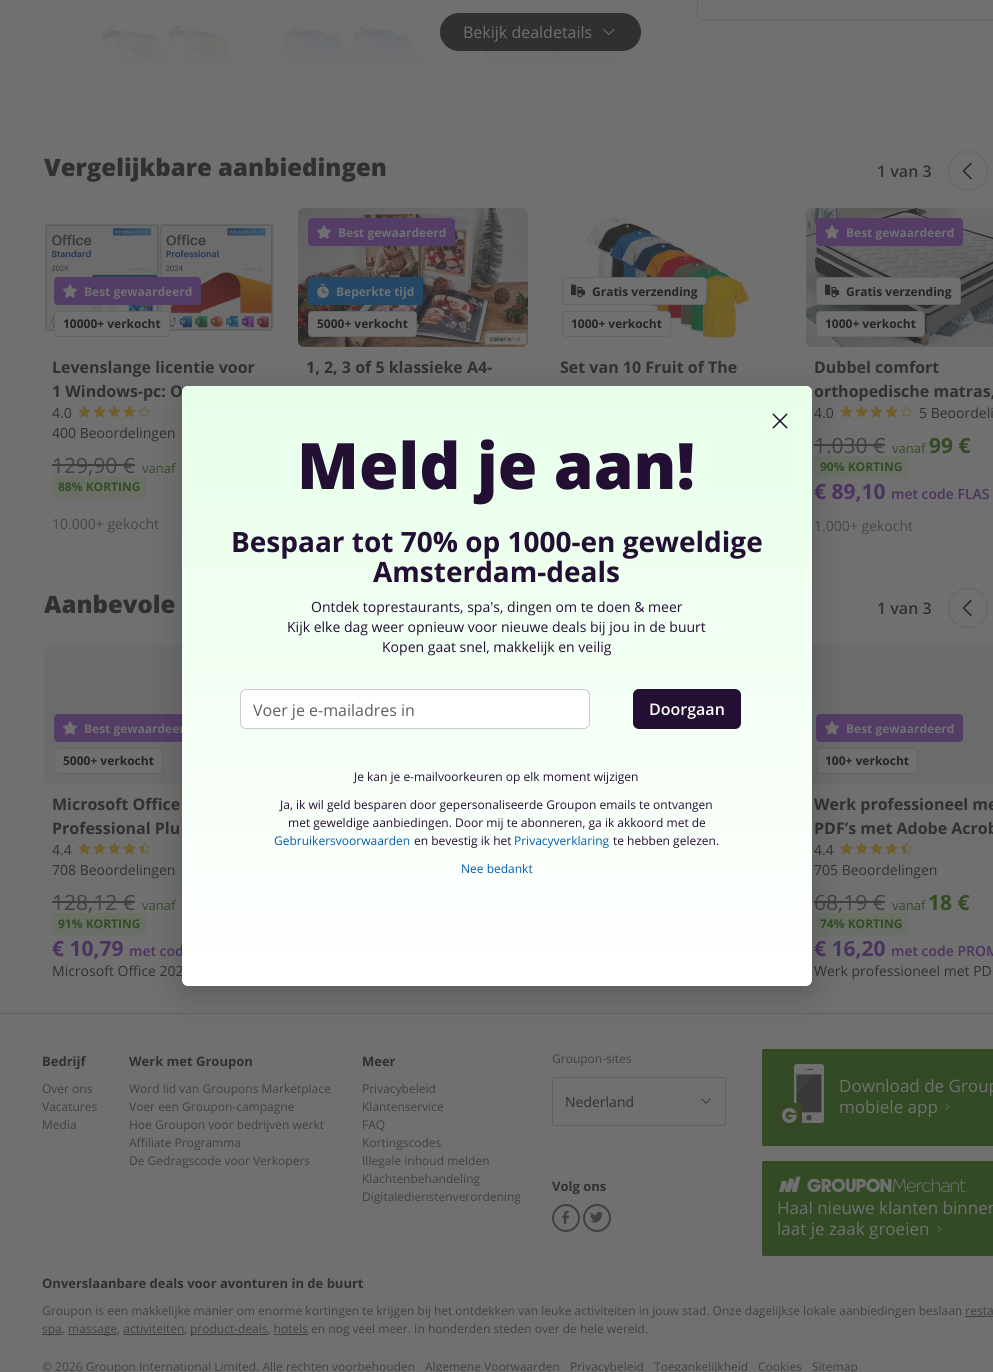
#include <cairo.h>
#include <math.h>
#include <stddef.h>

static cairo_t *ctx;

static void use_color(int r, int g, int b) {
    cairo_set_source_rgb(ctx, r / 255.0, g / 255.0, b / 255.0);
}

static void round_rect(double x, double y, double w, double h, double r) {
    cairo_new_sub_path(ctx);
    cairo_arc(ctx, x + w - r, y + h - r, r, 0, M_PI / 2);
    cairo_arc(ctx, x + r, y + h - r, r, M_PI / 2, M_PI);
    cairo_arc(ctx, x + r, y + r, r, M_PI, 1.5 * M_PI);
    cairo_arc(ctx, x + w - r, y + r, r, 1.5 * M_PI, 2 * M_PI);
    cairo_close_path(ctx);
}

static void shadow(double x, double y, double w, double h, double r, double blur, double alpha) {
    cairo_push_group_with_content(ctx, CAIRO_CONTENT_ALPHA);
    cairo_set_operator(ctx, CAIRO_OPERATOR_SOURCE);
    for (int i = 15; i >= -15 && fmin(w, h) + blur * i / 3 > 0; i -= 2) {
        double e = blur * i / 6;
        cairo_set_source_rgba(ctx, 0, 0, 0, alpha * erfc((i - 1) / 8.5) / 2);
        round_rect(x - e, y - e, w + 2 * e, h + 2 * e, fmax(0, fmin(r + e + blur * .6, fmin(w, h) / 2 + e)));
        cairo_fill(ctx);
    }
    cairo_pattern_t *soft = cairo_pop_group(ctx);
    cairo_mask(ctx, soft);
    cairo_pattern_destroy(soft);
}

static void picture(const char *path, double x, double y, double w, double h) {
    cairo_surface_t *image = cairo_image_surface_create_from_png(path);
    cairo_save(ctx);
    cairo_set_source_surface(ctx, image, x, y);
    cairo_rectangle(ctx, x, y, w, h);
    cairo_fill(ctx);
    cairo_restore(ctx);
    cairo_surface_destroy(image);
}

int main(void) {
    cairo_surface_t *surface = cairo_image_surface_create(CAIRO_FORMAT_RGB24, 993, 1372);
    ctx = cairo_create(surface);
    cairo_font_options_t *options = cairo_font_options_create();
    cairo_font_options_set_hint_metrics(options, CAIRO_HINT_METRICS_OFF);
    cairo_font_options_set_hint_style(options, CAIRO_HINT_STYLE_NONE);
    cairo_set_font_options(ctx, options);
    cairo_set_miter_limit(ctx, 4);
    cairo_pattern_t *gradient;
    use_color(112, 112, 112);
    cairo_paint(ctx);
    picture("img1.png", 66, 0, 561, 70);
    round_rect(697.5, -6.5, 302, 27, 5.5);
    use_color(36, 71, 101);
    cairo_set_line_width(ctx, 1);
    cairo_stroke(ctx);
    gradient = cairo_pattern_create_linear(540, -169, 540, 131);
    cairo_pattern_add_color_stop_rgba(gradient, 0, 0.439, 0.439, 0.439, 0);
    cairo_pattern_add_color_stop_rgba(gradient, 0.8, 0.439, 0.439, 0.439, 1);
    cairo_set_source(ctx, gradient);
    cairo_pattern_destroy(gradient);
    cairo_rectangle(ctx, 95, 0, 898, 70);
    cairo_fill(ctx);
    use_color(49, 47, 50);
    round_rect(440, 13, 201, 38, 19);
    cairo_fill(ctx);
    cairo_select_font_face(ctx, "Open Sans", CAIRO_FONT_SLANT_NORMAL, CAIRO_FONT_WEIGHT_NORMAL);
    cairo_set_font_size(ctx, 16);
    use_color(112, 112, 112);
    cairo_move_to(ctx, 463, 38);
    cairo_show_text(ctx, "Bekijk dealdetails");
    picture("img2.png", 603, 29, 12, 6);
    cairo_select_font_face(ctx, "Open Sans ExtraBold", CAIRO_FONT_SLANT_NORMAL, CAIRO_FONT_WEIGHT_NORMAL);
    cairo_set_font_size(ctx, 24);
    use_color(49, 47, 50);
    cairo_move_to(ctx, 44, 176);
    cairo_show_text(ctx, "Vergelijkbare aanbiedingen");
    cairo_select_font_face(ctx, "Open Sans SemiBold", CAIRO_FONT_SLANT_NORMAL, CAIRO_FONT_WEIGHT_NORMAL);
    cairo_set_font_size(ctx, 16);
    cairo_move_to(ctx, 877, 177);
    cairo_show_text(ctx, "1 van 3");
    cairo_new_path(ctx);
    cairo_arc(ctx, 968, 171, 19.5, 0, 2 * M_PI);
    use_color(100, 101, 101);
    cairo_stroke(ctx);
    picture("img3.png", 962, 162, 10, 18);
    picture("img4.png", 44, 208, 230, 139);
    use_color(83, 60, 102);
    round_rect(54.5, 277.5, 146, 27, 3.5);
    cairo_fill_preserve(ctx);
    cairo_stroke(ctx);
    picture("img5.png", 63, 284, 14, 14);
    cairo_select_font_face(ctx, "Open Sans", CAIRO_FONT_SLANT_NORMAL, CAIRO_FONT_WEIGHT_BOLD);
    cairo_set_font_size(ctx, 12);
    use_color(112, 112, 112);
    cairo_move_to(ctx, 84, 296);
    cairo_show_text(ctx, "Best gewaardeerd");
    round_rect(54.5, 311.5, 115, 25, 3.5);
    cairo_fill_preserve(ctx);
    use_color(101, 101, 102);
    cairo_stroke(ctx);
    use_color(36, 36, 36);
    cairo_move_to(ctx, 63, 328);
    cairo_show_text(ctx, "10000+ verkocht");
    cairo_set_font_size(ctx, 16);
    use_color(49, 47, 50);
    cairo_move_to(ctx, 52, 373);
    cairo_show_text(ctx, "Levenslange licentie voor");
    cairo_move_to(ctx, 52, 397);
    cairo_show_text(ctx, "1 Windows-pc: O");
    cairo_select_font_face(ctx, "Open Sans", CAIRO_FONT_SLANT_NORMAL, CAIRO_FONT_WEIGHT_NORMAL);
    cairo_set_font_size(ctx, 14);
    cairo_move_to(ctx, 52, 418);
    cairo_show_text(ctx, "4.0");
    picture("img6.png", 78, 405, 13, 13);
    picture("img7.png", 78, 405, 13, 13);
    picture("img6.png", 93, 405, 13, 13);
    picture("img7.png", 93, 405, 13, 13);
    picture("img6.png", 108, 405, 13, 13);
    picture("img7.png", 108, 405, 13, 13);
    picture("img6.png", 123, 405, 13, 13);
    picture("img7.png", 123, 405, 13, 13);
    picture("img6.png", 138, 405, 13, 13);
    cairo_move_to(ctx, 52, 438);
    cairo_show_text(ctx, "400 Beoordelingen");
    cairo_set_font_size(ctx, 21);
    use_color(65, 63, 66);
    cairo_move_to(ctx, 52, 473);
    cairo_show_text(ctx, "129,90 €");
    cairo_rectangle(ctx, 52, 464, 83, 2);
    cairo_fill(ctx);
    cairo_set_font_size(ctx, 13);
    use_color(50, 75, 36);
    cairo_move_to(ctx, 142, 473);
    cairo_show_text(ctx, "vanaf");
    use_color(106, 111, 102);
    round_rect(52, 476, 94, 22, 4);
    cairo_fill(ctx);
    cairo_select_font_face(ctx, "Open Sans", CAIRO_FONT_SLANT_NORMAL, CAIRO_FONT_WEIGHT_BOLD);
    cairo_set_font_size(ctx, 12);
    use_color(50, 75, 36);
    cairo_move_to(ctx, 58, 491);
    cairo_show_text(ctx, "88% KORTING");
    cairo_select_font_face(ctx, "Open Sans", CAIRO_FONT_SLANT_NORMAL, CAIRO_FONT_WEIGHT_NORMAL);
    cairo_set_font_size(ctx, 14);
    use_color(69, 70, 71);
    cairo_move_to(ctx, 52, 529);
    cairo_show_text(ctx, "10.000+ gekocht");
    picture("img8.png", 298, 208, 230, 139);
    use_color(83, 60, 102);
    round_rect(308.5, 218.5, 146, 27, 3.5);
    cairo_fill_preserve(ctx);
    cairo_stroke(ctx);
    picture("img5.png", 317, 225, 14, 14);
    cairo_select_font_face(ctx, "Open Sans", CAIRO_FONT_SLANT_NORMAL, CAIRO_FONT_WEIGHT_BOLD);
    cairo_set_font_size(ctx, 12);
    use_color(112, 112, 112);
    cairo_move_to(ctx, 338, 237);
    cairo_show_text(ctx, "Best gewaardeerd");
    use_color(36, 71, 101);
    round_rect(308.5, 277.5, 114, 27, 3.5);
    cairo_fill_preserve(ctx);
    cairo_stroke(ctx);
    picture("img9.png", 317, 284, 12, 14);
    use_color(112, 112, 112);
    cairo_move_to(ctx, 336, 296);
    cairo_show_text(ctx, "Beperkte tijd");
    round_rect(308.5, 311.5, 108, 25, 3.5);
    cairo_fill_preserve(ctx);
    use_color(101, 101, 102);
    cairo_stroke(ctx);
    use_color(36, 36, 36);
    cairo_move_to(ctx, 317, 328);
    cairo_show_text(ctx, "5000+ verkocht");
    cairo_set_font_size(ctx, 16);
    use_color(49, 47, 50);
    cairo_move_to(ctx, 306, 373);
    cairo_show_text(ctx, "1, 2, 3 of 5 klassieke A4-");
    picture("img10.png", 552, 208, 230, 139);
    use_color(112, 112, 112);
    round_rect(562.5, 277.5, 144, 27, 3.5);
    cairo_fill_preserve(ctx);
    use_color(101, 101, 102);
    cairo_stroke(ctx);
    picture("img11.png", 571, 284, 14, 14);
    cairo_set_font_size(ctx, 12);
    use_color(36, 36, 36);
    cairo_move_to(ctx, 592, 296);
    cairo_show_text(ctx, "Gratis verzending");
    use_color(112, 112, 112);
    round_rect(562.5, 311.5, 108, 25, 3.5);
    cairo_fill_preserve(ctx);
    use_color(101, 101, 102);
    cairo_stroke(ctx);
    use_color(36, 36, 36);
    cairo_move_to(ctx, 571, 328);
    cairo_show_text(ctx, "1000+ verkocht");
    cairo_set_font_size(ctx, 16);
    use_color(49, 47, 50);
    cairo_move_to(ctx, 560, 373);
    cairo_show_text(ctx, "Set van 10 Fruit of The");
    picture("img12.png", 806, 208, 187, 139);
    use_color(83, 60, 102);
    round_rect(816.5, 218.5, 146, 27, 3.5);
    cairo_fill_preserve(ctx);
    cairo_stroke(ctx);
    picture("img5.png", 825, 225, 14, 14);
    cairo_set_font_size(ctx, 12);
    use_color(112, 112, 112);
    cairo_move_to(ctx, 846, 237);
    cairo_show_text(ctx, "Best gewaardeerd");
    round_rect(816.5, 277.5, 144, 27, 3.5);
    cairo_fill_preserve(ctx);
    use_color(101, 101, 102);
    cairo_stroke(ctx);
    picture("img11.png", 825, 284, 14, 14);
    use_color(36, 36, 36);
    cairo_move_to(ctx, 846, 296);
    cairo_show_text(ctx, "Gratis verzending");
    use_color(112, 112, 112);
    round_rect(816.5, 311.5, 108, 25, 3.5);
    cairo_fill_preserve(ctx);
    use_color(101, 101, 102);
    cairo_stroke(ctx);
    use_color(36, 36, 36);
    cairo_move_to(ctx, 825, 328);
    cairo_show_text(ctx, "1000+ verkocht");
    cairo_set_font_size(ctx, 16);
    use_color(49, 47, 50);
    cairo_move_to(ctx, 814, 373);
    cairo_show_text(ctx, "Dubbel comfort");
    cairo_move_to(ctx, 814, 397);
    cairo_show_text(ctx, "orthopedische matras,");
    cairo_select_font_face(ctx, "Open Sans", CAIRO_FONT_SLANT_NORMAL, CAIRO_FONT_WEIGHT_NORMAL);
    cairo_set_font_size(ctx, 14);
    cairo_move_to(ctx, 814, 418);
    cairo_show_text(ctx, "4.0");
    picture("img6.png", 840, 405, 13, 13);
    picture("img7.png", 840, 405, 13, 13);
    picture("img6.png", 855, 405, 13, 13);
    picture("img7.png", 855, 405, 13, 13);
    picture("img6.png", 870, 405, 13, 13);
    picture("img7.png", 870, 405, 13, 13);
    picture("img6.png", 885, 405, 13, 13);
    picture("img7.png", 885, 405, 13, 13);
    picture("img6.png", 900, 405, 13, 13);
    cairo_move_to(ctx, 919, 418);
    cairo_show_text(ctx, "5 Beoordeli");
    cairo_set_font_size(ctx, 21);
    use_color(65, 63, 66);
    cairo_move_to(ctx, 814, 453);
    cairo_show_text(ctx, "1.030 €");
    cairo_rectangle(ctx, 814, 444, 71, 2);
    cairo_fill(ctx);
    cairo_set_font_size(ctx, 13);
    use_color(50, 75, 36);
    cairo_move_to(ctx, 892, 453);
    cairo_show_text(ctx, "vanaf");
    cairo_select_font_face(ctx, "Open Sans", CAIRO_FONT_SLANT_NORMAL, CAIRO_FONT_WEIGHT_BOLD);
    cairo_set_font_size(ctx, 21);
    cairo_move_to(ctx, 929, 453);
    cairo_show_text(ctx, "99 €");
    use_color(106, 111, 102);
    round_rect(814, 456, 94, 22, 4);
    cairo_fill(ctx);
    cairo_set_font_size(ctx, 12);
    use_color(50, 75, 36);
    cairo_move_to(ctx, 820, 471);
    cairo_show_text(ctx, "90% KORTING");
    cairo_set_font_size(ctx, 21);
    use_color(75, 50, 95);
    cairo_move_to(ctx, 814, 499);
    cairo_show_text(ctx, "€ 89,10");
    cairo_select_font_face(ctx, "Open Sans SemiBold", CAIRO_FONT_SLANT_NORMAL, CAIRO_FONT_WEIGHT_NORMAL);
    cairo_set_font_size(ctx, 14);
    cairo_move_to(ctx, 891, 499);
    cairo_show_text(ctx, "met code FLAS");
    cairo_select_font_face(ctx, "Open Sans", CAIRO_FONT_SLANT_NORMAL, CAIRO_FONT_WEIGHT_NORMAL);
    use_color(69, 70, 71);
    cairo_move_to(ctx, 814, 531);
    cairo_show_text(ctx, "1.000+ gekocht");
    cairo_select_font_face(ctx, "Open Sans ExtraBold", CAIRO_FONT_SLANT_NORMAL, CAIRO_FONT_WEIGHT_NORMAL);
    cairo_set_font_size(ctx, 24);
    use_color(49, 47, 50);
    cairo_move_to(ctx, 44, 613);
    cairo_show_text(ctx, "Aanbevole");
    cairo_select_font_face(ctx, "Open Sans SemiBold", CAIRO_FONT_SLANT_NORMAL, CAIRO_FONT_WEIGHT_NORMAL);
    cairo_set_font_size(ctx, 16);
    cairo_move_to(ctx, 877, 614);
    cairo_show_text(ctx, "1 van 3");
    cairo_new_path(ctx);
    cairo_arc(ctx, 968, 608, 19.5, 0, 2 * M_PI);
    use_color(100, 101, 101);
    cairo_stroke(ctx);
    picture("img3.png", 962, 599, 10, 18);
    use_color(106, 107, 109);
    round_rect(44, 645, 230, 139, 6);
    cairo_fill(ctx);
    use_color(83, 60, 102);
    round_rect(54.5, 714.5, 146, 27, 3.5);
    cairo_fill_preserve(ctx);
    cairo_stroke(ctx);
    picture("img5.png", 63, 721, 14, 14);
    cairo_select_font_face(ctx, "Open Sans", CAIRO_FONT_SLANT_NORMAL, CAIRO_FONT_WEIGHT_BOLD);
    cairo_set_font_size(ctx, 12);
    use_color(112, 112, 112);
    cairo_move_to(ctx, 84, 733);
    cairo_show_text(ctx, "Best gewaardeer");
    round_rect(54.5, 748.5, 108, 25, 3.5);
    cairo_fill_preserve(ctx);
    use_color(101, 101, 102);
    cairo_stroke(ctx);
    use_color(36, 36, 36);
    cairo_move_to(ctx, 63, 765);
    cairo_show_text(ctx, "5000+ verkocht");
    cairo_set_font_size(ctx, 16);
    use_color(49, 47, 50);
    cairo_move_to(ctx, 52, 810);
    cairo_show_text(ctx, "Microsoft Office");
    cairo_move_to(ctx, 52, 834);
    cairo_show_text(ctx, "Professional Plu");
    cairo_select_font_face(ctx, "Open Sans", CAIRO_FONT_SLANT_NORMAL, CAIRO_FONT_WEIGHT_NORMAL);
    cairo_set_font_size(ctx, 14);
    cairo_move_to(ctx, 52, 855);
    cairo_show_text(ctx, "4.4");
    picture("img6.png", 78, 842, 13, 13);
    picture("img7.png", 78, 842, 13, 13);
    picture("img6.png", 93, 842, 13, 13);
    picture("img7.png", 93, 842, 13, 13);
    picture("img6.png", 108, 842, 13, 13);
    picture("img7.png", 108, 842, 13, 13);
    picture("img6.png", 123, 842, 13, 13);
    picture("img7.png", 123, 842, 13, 13);
    picture("img6.png", 138, 842, 13, 13);
    picture("img13.png", 138, 843, 6, 12);
    cairo_move_to(ctx, 52, 875);
    cairo_show_text(ctx, "708 Beoordelingen");
    cairo_set_font_size(ctx, 21);
    use_color(65, 63, 66);
    cairo_move_to(ctx, 52, 910);
    cairo_show_text(ctx, "128,12 €");
    cairo_rectangle(ctx, 52, 901, 83, 2);
    cairo_fill(ctx);
    cairo_set_font_size(ctx, 13);
    use_color(50, 75, 36);
    cairo_move_to(ctx, 142, 910);
    cairo_show_text(ctx, "vanaf");
    use_color(106, 111, 102);
    round_rect(52, 913, 94, 22, 4);
    cairo_fill(ctx);
    cairo_select_font_face(ctx, "Open Sans", CAIRO_FONT_SLANT_NORMAL, CAIRO_FONT_WEIGHT_BOLD);
    cairo_set_font_size(ctx, 12);
    use_color(50, 75, 36);
    cairo_move_to(ctx, 58, 928);
    cairo_show_text(ctx, "91% KORTING");
    cairo_set_font_size(ctx, 21);
    use_color(75, 50, 95);
    cairo_move_to(ctx, 52, 956);
    cairo_show_text(ctx, "€ 10,79");
    cairo_select_font_face(ctx, "Open Sans SemiBold", CAIRO_FONT_SLANT_NORMAL, CAIRO_FONT_WEIGHT_NORMAL);
    cairo_set_font_size(ctx, 14);
    cairo_move_to(ctx, 129, 956);
    cairo_show_text(ctx, "met cod");
    cairo_select_font_face(ctx, "Open Sans", CAIRO_FONT_SLANT_NORMAL, CAIRO_FONT_WEIGHT_NORMAL);
    use_color(49, 47, 50);
    cairo_move_to(ctx, 52, 976);
    cairo_show_text(ctx, "Microsoft Office 202");
    use_color(106, 107, 109);
    cairo_rectangle(ctx, 812, 645, 181, 139);
    cairo_fill(ctx);
    use_color(83, 60, 102);
    round_rect(816.5, 714.5, 146, 27, 3.5);
    cairo_fill_preserve(ctx);
    cairo_stroke(ctx);
    picture("img5.png", 825, 721, 14, 14);
    cairo_select_font_face(ctx, "Open Sans", CAIRO_FONT_SLANT_NORMAL, CAIRO_FONT_WEIGHT_BOLD);
    cairo_set_font_size(ctx, 12);
    use_color(112, 112, 112);
    cairo_move_to(ctx, 846, 733);
    cairo_show_text(ctx, "Best gewaardeerd");
    round_rect(816.5, 748.5, 101, 25, 3.5);
    cairo_fill_preserve(ctx);
    use_color(101, 101, 102);
    cairo_stroke(ctx);
    use_color(36, 36, 36);
    cairo_move_to(ctx, 825, 765);
    cairo_show_text(ctx, "100+ verkocht");
    cairo_set_font_size(ctx, 16);
    use_color(49, 47, 50);
    cairo_move_to(ctx, 814, 810);
    cairo_show_text(ctx, "Werk professioneel me");
    cairo_move_to(ctx, 814, 834);
    cairo_show_text(ctx, "PDF’s met Adobe Acrob");
    cairo_select_font_face(ctx, "Open Sans", CAIRO_FONT_SLANT_NORMAL, CAIRO_FONT_WEIGHT_NORMAL);
    cairo_set_font_size(ctx, 14);
    cairo_move_to(ctx, 814, 855);
    cairo_show_text(ctx, "4.4");
    picture("img6.png", 840, 842, 13, 13);
    picture("img7.png", 840, 842, 13, 13);
    picture("img6.png", 855, 842, 13, 13);
    picture("img7.png", 855, 842, 13, 13);
    picture("img6.png", 870, 842, 13, 13);
    picture("img7.png", 870, 842, 13, 13);
    picture("img6.png", 885, 842, 13, 13);
    picture("img7.png", 885, 842, 13, 13);
    picture("img6.png", 900, 842, 13, 13);
    picture("img13.png", 900, 843, 6, 12);
    cairo_move_to(ctx, 814, 875);
    cairo_show_text(ctx, "705 Beoordelingen");
    cairo_set_font_size(ctx, 21);
    use_color(65, 63, 66);
    cairo_move_to(ctx, 814, 910);
    cairo_show_text(ctx, "68,19 €");
    cairo_rectangle(ctx, 814, 901, 71, 2);
    cairo_fill(ctx);
    cairo_set_font_size(ctx, 13);
    use_color(50, 75, 36);
    cairo_move_to(ctx, 892, 910);
    cairo_show_text(ctx, "vanaf");
    cairo_select_font_face(ctx, "Open Sans", CAIRO_FONT_SLANT_NORMAL, CAIRO_FONT_WEIGHT_BOLD);
    cairo_set_font_size(ctx, 21);
    cairo_move_to(ctx, 928, 910);
    cairo_show_text(ctx, "18 €");
    use_color(106, 111, 102);
    round_rect(814, 913, 94, 22, 4);
    cairo_fill(ctx);
    cairo_set_font_size(ctx, 12);
    use_color(50, 75, 36);
    cairo_move_to(ctx, 820, 928);
    cairo_show_text(ctx, "74% KORTING");
    cairo_set_font_size(ctx, 21);
    use_color(75, 50, 95);
    cairo_move_to(ctx, 814, 956);
    cairo_show_text(ctx, "€ 16,20");
    cairo_select_font_face(ctx, "Open Sans SemiBold", CAIRO_FONT_SLANT_NORMAL, CAIRO_FONT_WEIGHT_NORMAL);
    cairo_set_font_size(ctx, 14);
    cairo_move_to(ctx, 891, 956);
    cairo_show_text(ctx, "met code PROM");
    cairo_select_font_face(ctx, "Open Sans", CAIRO_FONT_SLANT_NORMAL, CAIRO_FONT_WEIGHT_NORMAL);
    use_color(49, 47, 50);
    cairo_move_to(ctx, 814, 976);
    cairo_show_text(ctx, "Werk professioneel met PD");
    use_color(96, 96, 97);
    cairo_rectangle(ctx, 0, 1013, 993, 1);
    cairo_fill(ctx);
    use_color(0, 0, 0);
    shadow(182, 394, 630, 600, 6, 16, 0.2);
    use_color(255, 255, 255);
    round_rect(182, 386, 630, 600, 6);
    cairo_fill(ctx);
    gradient = cairo_pattern_create_linear(497, 386, 497, 986);
    cairo_pattern_add_color_stop_rgba(gradient, 0, 0.906, 1, 0.914, 1);
    cairo_pattern_add_color_stop_rgba(gradient, 1, 0.906, 1, 0.914, 0);
    cairo_pattern_add_color_stop_rgba(gradient, 1, 1, 1, 1, 0);
    cairo_pattern_add_color_stop_rgba(gradient, 1, 1, 1, 1, 1);
    cairo_set_source(ctx, gradient);
    cairo_pattern_destroy(gradient);
    round_rect(182, 386, 630, 600, 6);
    cairo_fill(ctx);
    picture("img14.png", 772, 413, 16, 16);
    cairo_select_font_face(ctx, "Open Sans ExtraBold", CAIRO_FONT_SLANT_NORMAL, CAIRO_FONT_WEIGHT_NORMAL);
    cairo_set_font_size(ctx, 64);
    use_color(35, 15, 51);
    cairo_move_to(ctx, 297, 489);
    cairo_show_text(ctx, "Meld je aan!");
    cairo_select_font_face(ctx, "Open Sans", CAIRO_FONT_SLANT_NORMAL, CAIRO_FONT_WEIGHT_BOLD);
    cairo_set_font_size(ctx, 28);
    cairo_move_to(ctx, 231, 552);
    cairo_show_text(ctx, "Bespaar tot 70% op 1000-en geweldige");
    cairo_move_to(ctx, 373, 582);
    cairo_show_text(ctx, "Amsterdam-deals");
    cairo_select_font_face(ctx, "Open Sans", CAIRO_FONT_SLANT_NORMAL, CAIRO_FONT_WEIGHT_NORMAL);
    cairo_set_font_size(ctx, 14);
    cairo_move_to(ctx, 311, 612);
    cairo_show_text(ctx, "Ontdek toprestaurants, spa's, dingen om te doen & meer");
    cairo_move_to(ctx, 287, 632);
    cairo_show_text(ctx, "Kijk elke dag weer opnieuw voor nieuwe deals bij jou in de buurt");
    cairo_move_to(ctx, 382, 652);
    cairo_show_text(ctx, "Kopen gaat snel, makkelijk en veilig");
    use_color(255, 255, 255);
    round_rect(240.5, 689.5, 349, 39, 5.5);
    cairo_fill_preserve(ctx);
    use_color(202, 202, 204);
    cairo_stroke(ctx);
    cairo_set_font_size(ctx, 16);
    use_color(97, 92, 102);
    cairo_move_to(ctx, 253, 716);
    cairo_show_text(ctx, "Voer je e-mailadres in");
    use_color(35, 15, 51);
    round_rect(633, 689, 108, 40, 6);
    cairo_fill(ctx);
    cairo_select_font_face(ctx, "Open Sans SemiBold", CAIRO_FONT_SLANT_NORMAL, CAIRO_FONT_WEIGHT_NORMAL);
    use_color(255, 255, 255);
    cairo_move_to(ctx, 649, 715);
    cairo_show_text(ctx, "Doorgaan");
    cairo_select_font_face(ctx, "Open Sans", CAIRO_FONT_SLANT_NORMAL, CAIRO_FONT_WEIGHT_NORMAL);
    cairo_set_font_size(ctx, 12);
    use_color(35, 15, 51);
    cairo_move_to(ctx, 354, 781);
    cairo_show_text(ctx, "Je kan je e-mailvoorkeuren op elk moment wijzigen");
    cairo_move_to(ctx, 280, 809);
    cairo_show_text(ctx, "Ja, ik wil geld besparen door gepersonaliseerde Groupon emails te ontvangen");
    cairo_move_to(ctx, 288, 827);
    cairo_show_text(ctx, "met geweldige aanbiedingen. Door mij te abonneren, ga ik akkoord met de");
    use_color(0, 94, 171);
    cairo_move_to(ctx, 274, 845);
    cairo_show_text(ctx, "Gebruikersvoorwaarden");
    use_color(35, 15, 51);
    cairo_move_to(ctx, 414, 845);
    cairo_show_text(ctx, "en bevestig ik het");
    use_color(0, 94, 171);
    cairo_move_to(ctx, 514, 845);
    cairo_show_text(ctx, "Privacyverklaring");
    use_color(35, 15, 51);
    cairo_move_to(ctx, 613, 845);
    cairo_show_text(ctx, "te hebben gelezen.");
    use_color(0, 94, 171);
    cairo_move_to(ctx, 461, 873);
    cairo_show_text(ctx, "Nee bedankt");
    cairo_select_font_face(ctx, "Open Sans", CAIRO_FONT_SLANT_NORMAL, CAIRO_FONT_WEIGHT_BOLD);
    cairo_set_font_size(ctx, 13);
    use_color(49, 47, 50);
    cairo_move_to(ctx, 42, 1066);
    cairo_show_text(ctx, "Bedrijf");
    cairo_select_font_face(ctx, "Open Sans", CAIRO_FONT_SLANT_NORMAL, CAIRO_FONT_WEIGHT_NORMAL);
    cairo_set_font_size(ctx, 12);
    use_color(65, 63, 66);
    cairo_move_to(ctx, 42, 1093);
    cairo_show_text(ctx, "Over ons");
    cairo_move_to(ctx, 42, 1111);
    cairo_show_text(ctx, "Vacatures");
    cairo_move_to(ctx, 42, 1129);
    cairo_show_text(ctx, "Media");
    cairo_select_font_face(ctx, "Open Sans", CAIRO_FONT_SLANT_NORMAL, CAIRO_FONT_WEIGHT_BOLD);
    cairo_set_font_size(ctx, 13);
    use_color(49, 47, 50);
    cairo_move_to(ctx, 129, 1066);
    cairo_show_text(ctx, "Werk met Groupon");
    cairo_select_font_face(ctx, "Open Sans", CAIRO_FONT_SLANT_NORMAL, CAIRO_FONT_WEIGHT_NORMAL);
    cairo_set_font_size(ctx, 12);
    use_color(65, 63, 66);
    cairo_move_to(ctx, 129, 1093);
    cairo_show_text(ctx, "Word lid van Groupons Marketplace");
    cairo_move_to(ctx, 129, 1111);
    cairo_show_text(ctx, "Voer een Groupon-campagne");
    cairo_move_to(ctx, 129, 1129);
    cairo_show_text(ctx, "Hoe Groupon voor bedrijven werkt");
    cairo_move_to(ctx, 129, 1147);
    cairo_show_text(ctx, "Affiliate Programma");
    cairo_move_to(ctx, 129, 1165);
    cairo_show_text(ctx, "De Gedragscode voor Verkopers");
    cairo_select_font_face(ctx, "Open Sans", CAIRO_FONT_SLANT_NORMAL, CAIRO_FONT_WEIGHT_BOLD);
    cairo_set_font_size(ctx, 13);
    use_color(49, 47, 50);
    cairo_move_to(ctx, 362, 1066);
    cairo_show_text(ctx, "Meer");
    cairo_select_font_face(ctx, "Open Sans", CAIRO_FONT_SLANT_NORMAL, CAIRO_FONT_WEIGHT_NORMAL);
    cairo_set_font_size(ctx, 12);
    use_color(65, 63, 66);
    cairo_move_to(ctx, 362, 1093);
    cairo_show_text(ctx, "Privacybeleid");
    cairo_move_to(ctx, 362, 1111);
    cairo_show_text(ctx, "Klantenservice");
    cairo_move_to(ctx, 362, 1129);
    cairo_show_text(ctx, "FAQ");
    cairo_move_to(ctx, 362, 1147);
    cairo_show_text(ctx, "Kortingscodes");
    cairo_move_to(ctx, 362, 1165);
    cairo_show_text(ctx, "Illegale inhoud melden");
    cairo_move_to(ctx, 362, 1183);
    cairo_show_text(ctx, "Klachtenbehandeling");
    cairo_move_to(ctx, 362, 1201);
    cairo_show_text(ctx, "Digitaledienstenverordening");
    cairo_move_to(ctx, 552, 1063);
    cairo_show_text(ctx, "Groupon-sites");
    round_rect(552.5, 1077.5, 173, 48, 1.5);
    use_color(96, 96, 97);
    cairo_stroke(ctx);
    cairo_set_font_size(ctx, 14);
    use_color(49, 47, 50);
    cairo_move_to(ctx, 565, 1107);
    cairo_show_text(ctx, "Nederland");
    picture("img15.png", 701, 1098, 10, 6);
    cairo_select_font_face(ctx, "Open Sans", CAIRO_FONT_SLANT_NORMAL, CAIRO_FONT_WEIGHT_BOLD);
    cairo_set_font_size(ctx, 13);
    cairo_move_to(ctx, 552, 1191);
    cairo_show_text(ctx, "Volg ons");
    cairo_new_path(ctx);
    cairo_arc(ctx, 566, 1218, 13, 0, 2 * M_PI);
    use_color(65, 63, 66);
    cairo_set_line_width(ctx, 2);
    cairo_stroke(ctx);
    picture("img16.png", 562, 1210, 7, 14);
    cairo_arc(ctx, 597, 1218, 13, 0, 2 * M_PI);
    cairo_stroke(ctx);
    picture("img17.png", 590, 1212, 13, 11);
    use_color(50, 75, 36);
    round_rect(762, 1049, 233, 97, 2);
    cairo_fill(ctx);
    picture("img18.png", 777, 1064, 47, 64);
    cairo_select_font_face(ctx, "Open Sans", CAIRO_FONT_SLANT_NORMAL, CAIRO_FONT_WEIGHT_NORMAL);
    cairo_set_font_size(ctx, 17);
    use_color(112, 112, 112);
    cairo_move_to(ctx, 839, 1092);
    cairo_show_text(ctx, "Download de Group");
    cairo_move_to(ctx, 839, 1113);
    cairo_show_text(ctx, "mobiele app");
    picture("img19.png", 945, 1103, 4, 8);
    use_color(50, 75, 36);
    round_rect(762, 1161, 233, 95, 2);
    cairo_fill(ctx);
    picture("img20.png", 779, 1176, 190, 17);
    use_color(112, 112, 112);
    cairo_move_to(ctx, 777, 1214);
    cairo_show_text(ctx, "Haal nieuwe klanten binnen");
    cairo_move_to(ctx, 777, 1235);
    cairo_show_text(ctx, "laat je zaak groeien");
    picture("img19.png", 937, 1225, 4, 8);
    cairo_select_font_face(ctx, "Open Sans", CAIRO_FONT_SLANT_NORMAL, CAIRO_FONT_WEIGHT_BOLD);
    cairo_set_font_size(ctx, 13);
    use_color(49, 47, 50);
    cairo_move_to(ctx, 42, 1288);
    cairo_show_text(ctx, "Onverslaanbare deals voor avonturen in de buurt");
    cairo_select_font_face(ctx, "Open Sans", CAIRO_FONT_SLANT_NORMAL, CAIRO_FONT_WEIGHT_NORMAL);
    cairo_set_font_size(ctx, 12);
    use_color(65, 63, 66);
    cairo_move_to(ctx, 42, 1315);
    cairo_show_text(ctx, "Groupon is een makkelijke manier om enorme kortingen te krijgen bij het ontdekken van leuke activiteiten in jouw stad. Onze dagelijkse lokale aanbiedingen beslaan resta");
    cairo_rectangle(ctx, 965, 1316, 28, 1);
    cairo_fill(ctx);
    cairo_rectangle(ctx, 42, 1334, 20, 1);
    cairo_fill(ctx);
    cairo_move_to(ctx, 42, 1333);
    cairo_show_text(ctx, "spa,");
    cairo_rectangle(ctx, 68, 1334, 49, 1);
    cairo_fill(ctx);
    cairo_move_to(ctx, 68, 1333);
    cairo_show_text(ctx, "massage, activiteiten,");
    cairo_rectangle(ctx, 190, 1334, 78, 1);
    cairo_fill(ctx);
    cairo_move_to(ctx, 190, 1333);
    cairo_show_text(ctx, "product-deals, hotels en nog veel meer. In honderden steden over de hele wereld.");
    cairo_rectangle(ctx, 123, 1334, 61, 1);
    cairo_fill(ctx);
    cairo_rectangle(ctx, 274, 1334, 34, 1);
    cairo_fill(ctx);
    cairo_move_to(ctx, 42, 1371);
    cairo_show_text(ctx, "© 2026 Groupon International Limited. Alle rechten voorbehouden");
    cairo_move_to(ctx, 425, 1371);
    cairo_show_text(ctx, "Algemene Voorwaarden");
    cairo_move_to(ctx, 570, 1371);
    cairo_show_text(ctx, "Privacybeleid");
    cairo_move_to(ctx, 654, 1371);
    cairo_show_text(ctx, "Toegankelijkheid");
    cairo_move_to(ctx, 758, 1371);
    cairo_show_text(ctx, "Cookies");
    cairo_move_to(ctx, 812, 1371);
    cairo_show_text(ctx, "Sitemap");
    cairo_surface_write_to_png(surface, "result.png");
    cairo_font_options_destroy(options);
    cairo_destroy(ctx);
    cairo_surface_destroy(surface);
    return 0;
}
